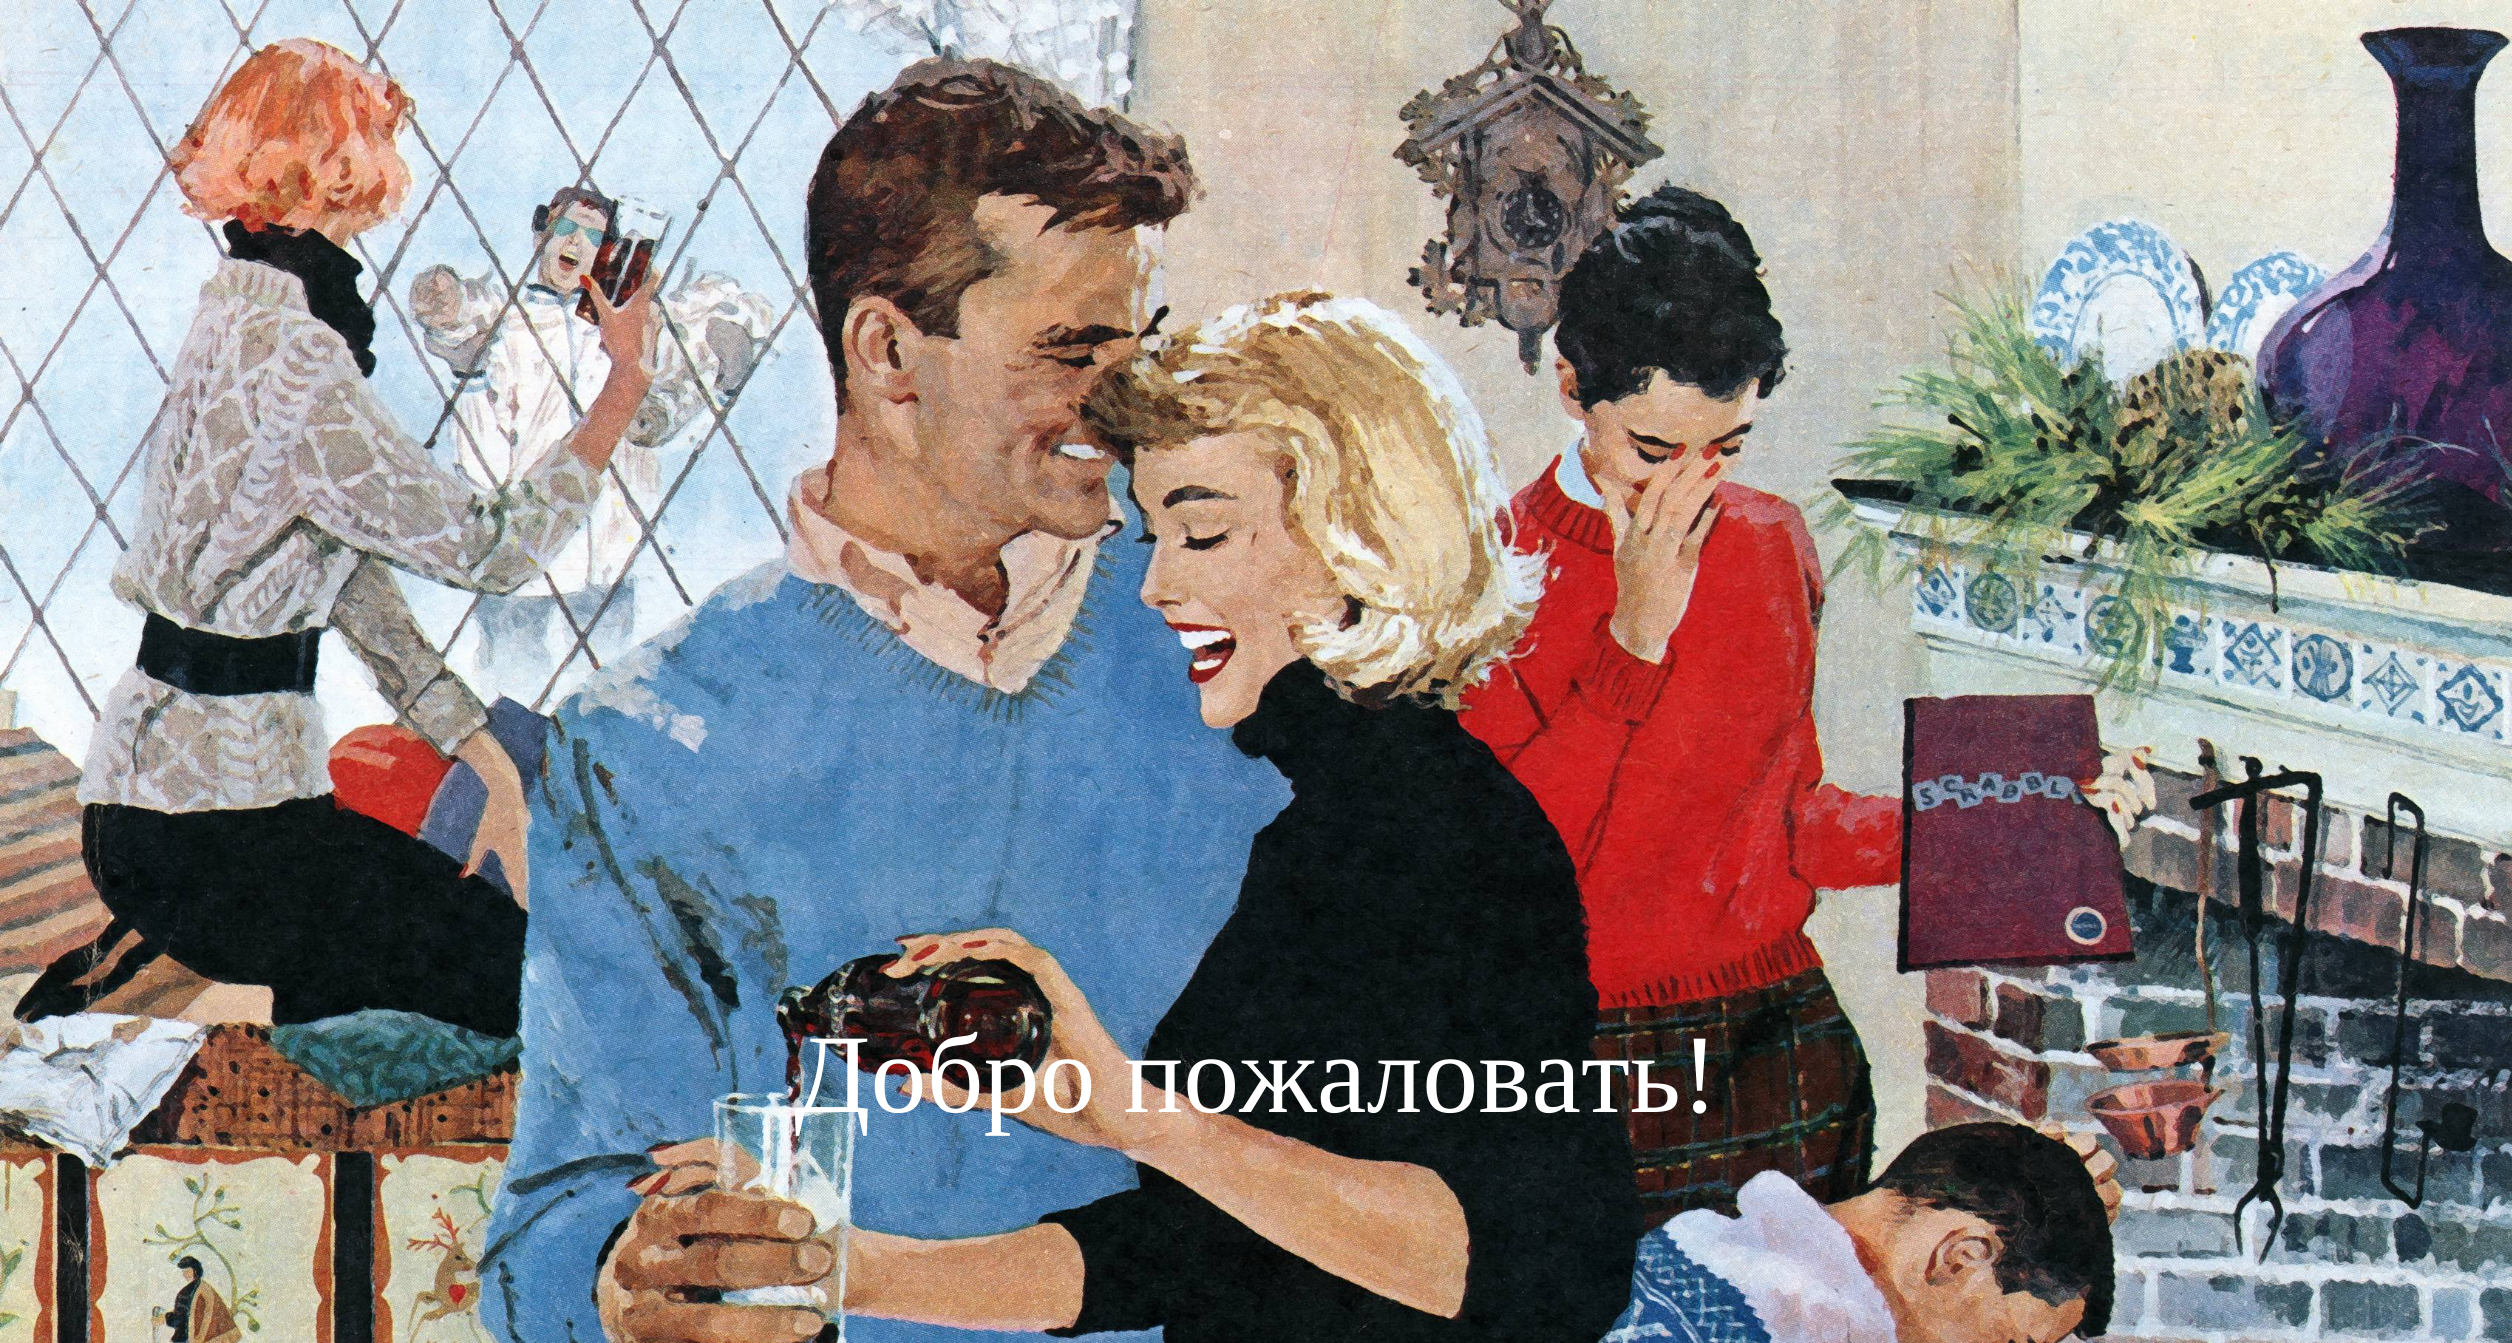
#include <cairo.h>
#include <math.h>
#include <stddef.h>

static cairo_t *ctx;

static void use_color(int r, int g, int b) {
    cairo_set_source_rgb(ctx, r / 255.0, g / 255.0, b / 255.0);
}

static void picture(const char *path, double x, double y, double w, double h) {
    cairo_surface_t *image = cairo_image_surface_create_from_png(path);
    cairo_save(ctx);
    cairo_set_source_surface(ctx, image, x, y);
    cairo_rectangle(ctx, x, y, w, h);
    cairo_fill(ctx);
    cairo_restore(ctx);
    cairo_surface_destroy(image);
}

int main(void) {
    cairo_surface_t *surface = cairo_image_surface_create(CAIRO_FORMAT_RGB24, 2512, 1343);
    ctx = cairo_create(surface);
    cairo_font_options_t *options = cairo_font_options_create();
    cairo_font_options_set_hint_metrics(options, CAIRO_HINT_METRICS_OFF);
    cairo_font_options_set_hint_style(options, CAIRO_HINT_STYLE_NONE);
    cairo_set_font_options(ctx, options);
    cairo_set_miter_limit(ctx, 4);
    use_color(255, 255, 255);
    cairo_paint(ctx);
    picture("img1.png", 0, 0, 2512, 1343);
    cairo_select_font_face(ctx, "Liberation Serif", CAIRO_FONT_SLANT_NORMAL, CAIRO_FONT_WEIGHT_NORMAL);
    cairo_set_font_size(ctx, 112);
    use_color(255, 255, 255);
    cairo_move_to(ctx, 794, 1112);
    cairo_show_text(ctx, "Добро пожаловать!");
    cairo_surface_write_to_png(surface, "result.png");
    cairo_font_options_destroy(options);
    cairo_destroy(ctx);
    cairo_surface_destroy(surface);
    return 0;
}
